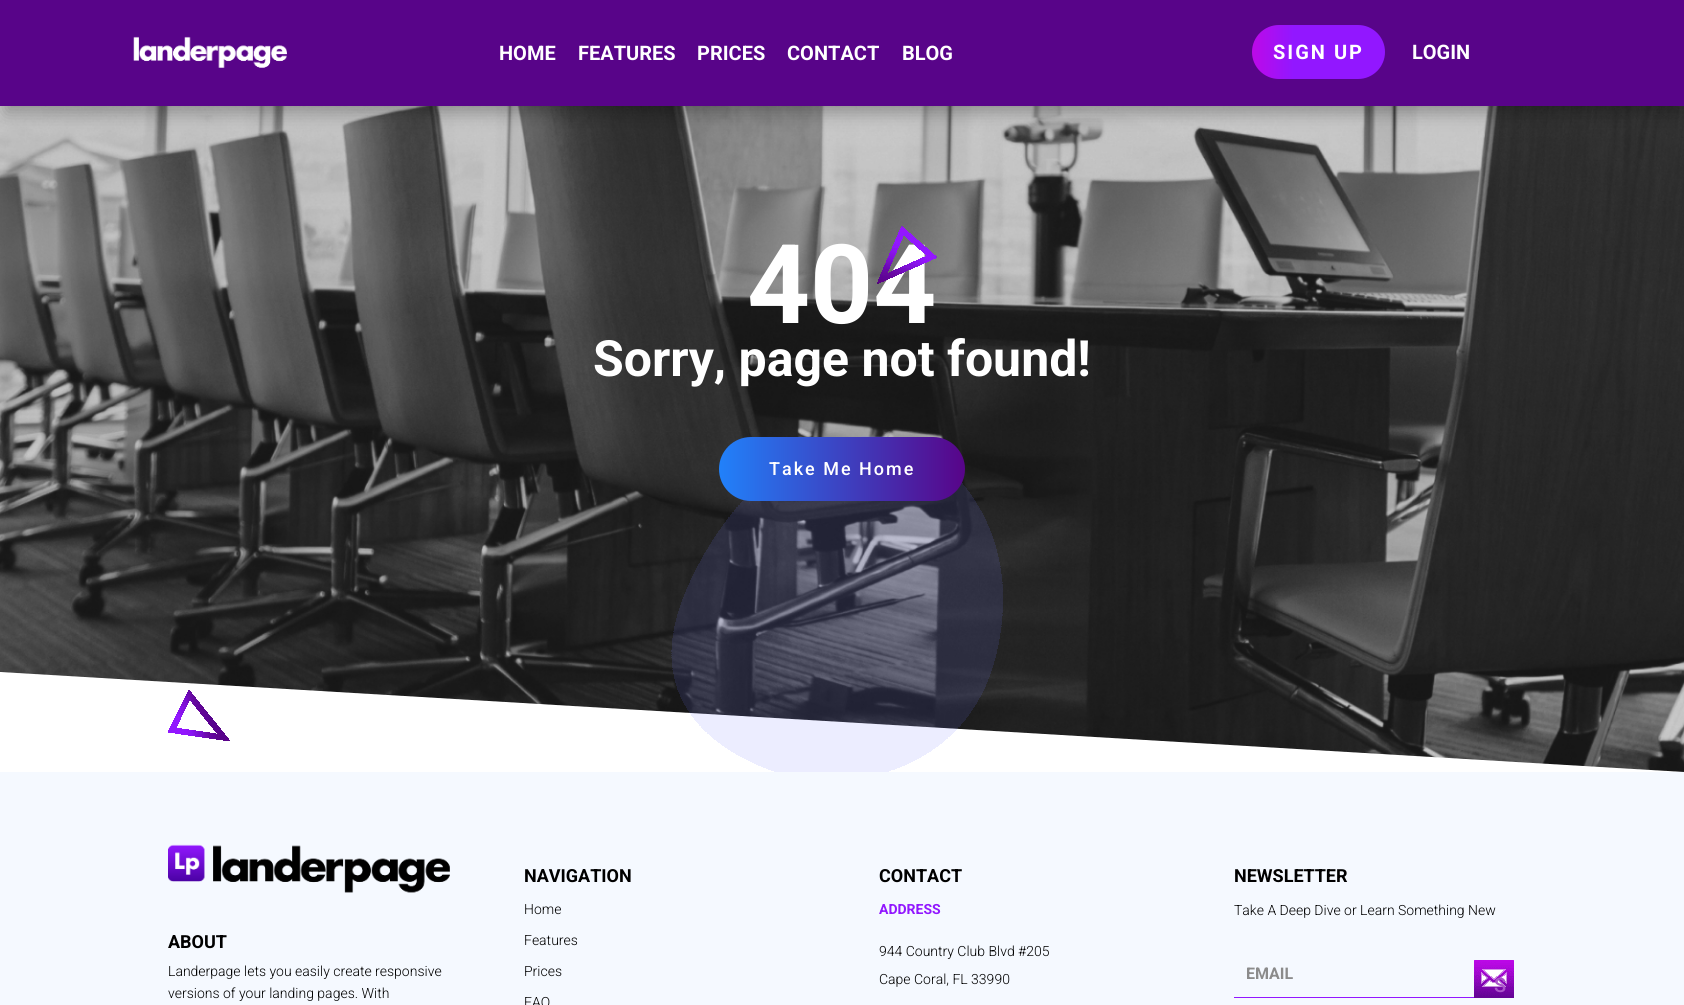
#include <cairo.h>
#include <math.h>
#include <stddef.h>

static cairo_t *ctx;

static void use_color(int r, int g, int b) {
    cairo_set_source_rgb(ctx, r / 255.0, g / 255.0, b / 255.0);
}

static void spaced_text(double x, double y, const char *s, double letter, double word) {
    cairo_move_to(ctx, x, y);
    while (*s) {
        char ch[5] = {0};
        int n = 0;
        do ch[n++] = *s++; while ((*s & 0xC0) == 0x80);
        cairo_show_text(ctx, ch);
        cairo_rel_move_to(ctx, letter + word * (*ch == ' '), 0);
    }
}

static void round_rect(double x, double y, double w, double h, double r) {
    cairo_new_sub_path(ctx);
    cairo_arc(ctx, x + w - r, y + h - r, r, 0, M_PI / 2);
    cairo_arc(ctx, x + r, y + h - r, r, M_PI / 2, M_PI);
    cairo_arc(ctx, x + r, y + r, r, M_PI, 1.5 * M_PI);
    cairo_arc(ctx, x + w - r, y + r, r, 1.5 * M_PI, 2 * M_PI);
    cairo_close_path(ctx);
}

static void shadow(double x, double y, double w, double h, double r, double blur, double alpha) {
    cairo_push_group_with_content(ctx, CAIRO_CONTENT_ALPHA);
    cairo_set_operator(ctx, CAIRO_OPERATOR_SOURCE);
    for (int i = 15; i >= -15 && fmin(w, h) + blur * i / 3 > 0; i -= 2) {
        double e = blur * i / 6;
        cairo_set_source_rgba(ctx, 0, 0, 0, alpha * erfc((i - 1) / 8.5) / 2);
        round_rect(x - e, y - e, w + 2 * e, h + 2 * e, fmax(0, fmin(r + e + blur * .6, fmin(w, h) / 2 + e)));
        cairo_fill(ctx);
    }
    cairo_pattern_t *soft = cairo_pop_group(ctx);
    cairo_mask(ctx, soft);
    cairo_pattern_destroy(soft);
}

static void picture(const char *path, double x, double y, double w, double h) {
    cairo_surface_t *image = cairo_image_surface_create_from_png(path);
    cairo_save(ctx);
    cairo_set_source_surface(ctx, image, x, y);
    cairo_rectangle(ctx, x, y, w, h);
    cairo_fill(ctx);
    cairo_restore(ctx);
    cairo_surface_destroy(image);
}

int main(void) {
    cairo_surface_t *surface = cairo_image_surface_create(CAIRO_FORMAT_RGB24, 1684, 1005);
    ctx = cairo_create(surface);
    cairo_font_options_t *options = cairo_font_options_create();
    cairo_font_options_set_hint_metrics(options, CAIRO_HINT_METRICS_OFF);
    cairo_font_options_set_hint_style(options, CAIRO_HINT_STYLE_NONE);
    cairo_set_font_options(ctx, options);
    cairo_set_miter_limit(ctx, 4);
    cairo_pattern_t *gradient;
    use_color(255, 255, 255);
    cairo_paint(ctx);
    picture("img2.png", 0, 106, 1684, 666);
    use_color(0, 0, 0);
    shadow(6, 18, 1672, 94, 0, 9, 0.3);
    use_color(88, 4, 137);
    cairo_rectangle(ctx, 0, 0, 1684, 106);
    cairo_fill(ctx);
    picture("img1.png", 133, 36, 154, 32);
    cairo_select_font_face(ctx, "Roboto", CAIRO_FONT_SLANT_NORMAL, CAIRO_FONT_WEIGHT_BOLD);
    cairo_set_font_size(ctx, 20);
    use_color(255, 255, 255);
    cairo_move_to(ctx, 499, 60);
    cairo_show_text(ctx, "HOME");
    cairo_move_to(ctx, 578, 60);
    cairo_show_text(ctx, "FEATURES");
    cairo_move_to(ctx, 697, 60);
    cairo_show_text(ctx, "PRICES");
    cairo_move_to(ctx, 787, 60);
    cairo_show_text(ctx, "CONTACT");
    cairo_move_to(ctx, 902, 60);
    cairo_show_text(ctx, "BLOG");
    gradient = cairo_pattern_create_linear(1252, 52, 1385, 52);
    cairo_pattern_add_color_stop_rgba(gradient, 0, 0.741, 0.035, 0.91, 1);
    cairo_pattern_add_color_stop_rgba(gradient, 0.31, 0.573, 0.09, 1, 1);
    cairo_set_source(ctx, gradient);
    cairo_pattern_destroy(gradient);
    round_rect(1252, 25, 133, 54, 27);
    cairo_fill(ctx);
    use_color(255, 255, 255);
    spaced_text(1273, 59, "SIGN UP", 2, 0);
    cairo_move_to(ctx, 1412, 59);
    cairo_show_text(ctx, "LOGIN");
    cairo_set_font_size(ctx, 110);
    cairo_move_to(ctx, 747, 323);
    cairo_show_text(ctx, "404");
    picture("img3.png", 877, 226, 60, 58);
    cairo_set_font_size(ctx, 50);
    cairo_move_to(ctx, 593, 376);
    cairo_show_text(ctx, "Sorry, page not found!");
    cairo_new_path(ctx);
    cairo_move_to(ctx, 0, 672);
    cairo_line_to(ctx, 0, 772);
    cairo_line_to(ctx, 1684, 772);
    cairo_close_path(ctx);
    cairo_fill(ctx);
    picture("img4.png", 671, 436, 332, 336);
    gradient = cairo_pattern_create_linear(719, 469, 965, 469);
    cairo_pattern_add_color_stop_rgba(gradient, 0, 0.129, 0.506, 0.98, 1);
    cairo_pattern_add_color_stop_rgba(gradient, 1, 0.345, 0.016, 0.537, 1);
    cairo_set_source(ctx, gradient);
    cairo_pattern_destroy(gradient);
    round_rect(719, 437, 246, 64, 32);
    cairo_fill(ctx);
    cairo_select_font_face(ctx, "Roboto Medium", CAIRO_FONT_SLANT_NORMAL, CAIRO_FONT_WEIGHT_NORMAL);
    cairo_set_font_size(ctx, 18);
    use_color(255, 255, 255);
    spaced_text(769, 475, "Take Me Home", 2, 0);
    picture("img5.png", 168, 690, 62, 51);
    use_color(245, 249, 255);
    cairo_rectangle(ctx, 0, 772, 1684, 233);
    cairo_fill(ctx);
    picture("img6.png", 168, 844, 282, 49);
    cairo_select_font_face(ctx, "Roboto", CAIRO_FONT_SLANT_NORMAL, CAIRO_FONT_WEIGHT_BOLD);
    use_color(0, 0, 0);
    cairo_move_to(ctx, 168, 948);
    cairo_show_text(ctx, "ABOUT");
    cairo_select_font_face(ctx, "Roboto Light", CAIRO_FONT_SLANT_NORMAL, CAIRO_FONT_WEIGHT_NORMAL);
    cairo_set_font_size(ctx, 14);
    cairo_move_to(ctx, 168, 976);
    cairo_show_text(ctx, "Landerpage lets you easily create responsive");
    cairo_move_to(ctx, 168, 998);
    cairo_show_text(ctx, "versions of your landing pages. With");
    cairo_select_font_face(ctx, "Roboto", CAIRO_FONT_SLANT_NORMAL, CAIRO_FONT_WEIGHT_BOLD);
    cairo_set_font_size(ctx, 18);
    cairo_move_to(ctx, 524, 882);
    cairo_show_text(ctx, "NAVIGATION");
    cairo_select_font_face(ctx, "Roboto Light", CAIRO_FONT_SLANT_NORMAL, CAIRO_FONT_WEIGHT_NORMAL);
    cairo_set_font_size(ctx, 14);
    cairo_move_to(ctx, 524, 914);
    cairo_show_text(ctx, "Home");
    cairo_move_to(ctx, 524, 945);
    cairo_show_text(ctx, "Features");
    cairo_move_to(ctx, 524, 976);
    cairo_show_text(ctx, "Prices");
    cairo_move_to(ctx, 524, 1007);
    cairo_show_text(ctx, "FAQ");
    cairo_select_font_face(ctx, "Roboto", CAIRO_FONT_SLANT_NORMAL, CAIRO_FONT_WEIGHT_BOLD);
    cairo_set_font_size(ctx, 18);
    cairo_move_to(ctx, 879, 882);
    cairo_show_text(ctx, "CONTACT");
    cairo_set_font_size(ctx, 14);
    use_color(146, 23, 255);
    cairo_move_to(ctx, 879, 914);
    cairo_show_text(ctx, "ADDRESS");
    cairo_select_font_face(ctx, "Roboto Light", CAIRO_FONT_SLANT_NORMAL, CAIRO_FONT_WEIGHT_NORMAL);
    use_color(0, 0, 0);
    cairo_move_to(ctx, 879, 956);
    cairo_show_text(ctx, "944 Country Club Blvd #205");
    cairo_move_to(ctx, 879, 984);
    cairo_show_text(ctx, "Cape Coral, FL 33990");
    cairo_select_font_face(ctx, "Roboto", CAIRO_FONT_SLANT_NORMAL, CAIRO_FONT_WEIGHT_BOLD);
    cairo_set_font_size(ctx, 18);
    cairo_move_to(ctx, 1234, 882);
    cairo_show_text(ctx, "NEWSLETTER");
    cairo_select_font_face(ctx, "Roboto Light", CAIRO_FONT_SLANT_NORMAL, CAIRO_FONT_WEIGHT_NORMAL);
    cairo_set_font_size(ctx, 14);
    cairo_move_to(ctx, 1234, 915);
    cairo_show_text(ctx, "Take A Deep Dive or Learn Something New");
    use_color(146, 23, 255);
    cairo_rectangle(ctx, 1234, 997, 242, 1);
    cairo_fill(ctx);
    cairo_select_font_face(ctx, "Roboto", CAIRO_FONT_SLANT_NORMAL, CAIRO_FONT_WEIGHT_BOLD);
    cairo_set_font_size(ctx, 16);
    use_color(139, 139, 139);
    cairo_move_to(ctx, 1246, 979);
    cairo_show_text(ctx, "EMAIL");
    picture("img7.png", 1474, 960, 40, 38);
    cairo_select_font_face(ctx, "Roboto Medium", CAIRO_FONT_SLANT_NORMAL, CAIRO_FONT_WEIGHT_NORMAL);
    cairo_set_font_size(ctx, 20);
    use_color(169, 86, 201);
    cairo_move_to(ctx, 1494, 992);
    cairo_show_text(ctx, "S");
    cairo_surface_write_to_png(surface, "result.png");
    cairo_font_options_destroy(options);
    cairo_destroy(ctx);
    cairo_surface_destroy(surface);
    return 0;
}
